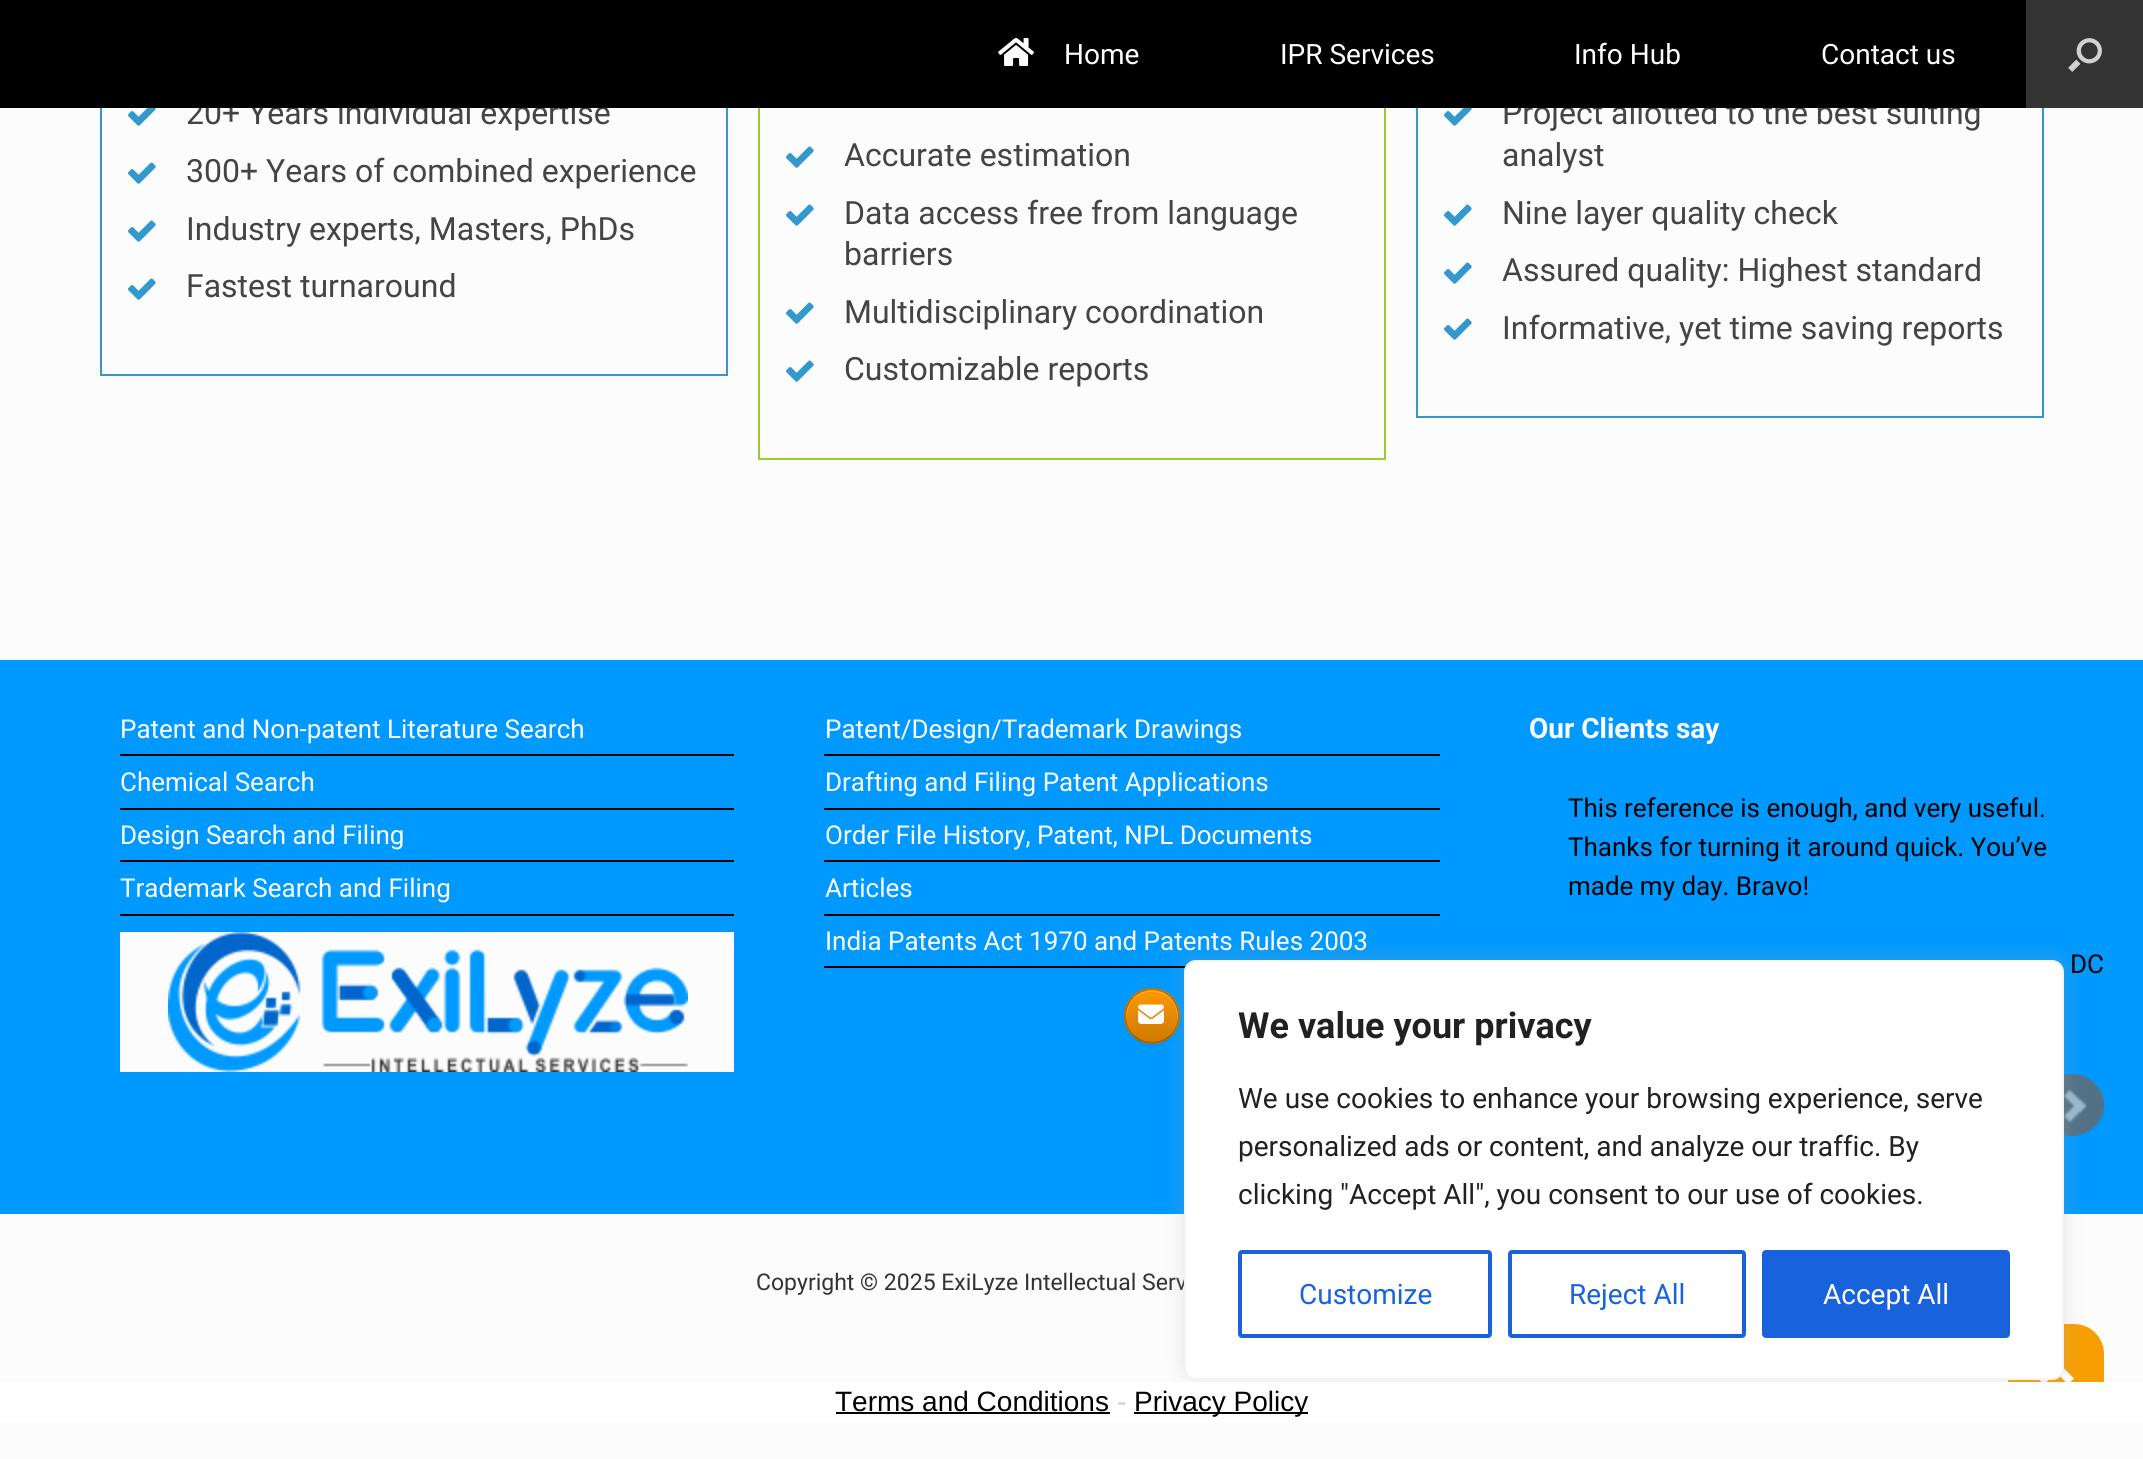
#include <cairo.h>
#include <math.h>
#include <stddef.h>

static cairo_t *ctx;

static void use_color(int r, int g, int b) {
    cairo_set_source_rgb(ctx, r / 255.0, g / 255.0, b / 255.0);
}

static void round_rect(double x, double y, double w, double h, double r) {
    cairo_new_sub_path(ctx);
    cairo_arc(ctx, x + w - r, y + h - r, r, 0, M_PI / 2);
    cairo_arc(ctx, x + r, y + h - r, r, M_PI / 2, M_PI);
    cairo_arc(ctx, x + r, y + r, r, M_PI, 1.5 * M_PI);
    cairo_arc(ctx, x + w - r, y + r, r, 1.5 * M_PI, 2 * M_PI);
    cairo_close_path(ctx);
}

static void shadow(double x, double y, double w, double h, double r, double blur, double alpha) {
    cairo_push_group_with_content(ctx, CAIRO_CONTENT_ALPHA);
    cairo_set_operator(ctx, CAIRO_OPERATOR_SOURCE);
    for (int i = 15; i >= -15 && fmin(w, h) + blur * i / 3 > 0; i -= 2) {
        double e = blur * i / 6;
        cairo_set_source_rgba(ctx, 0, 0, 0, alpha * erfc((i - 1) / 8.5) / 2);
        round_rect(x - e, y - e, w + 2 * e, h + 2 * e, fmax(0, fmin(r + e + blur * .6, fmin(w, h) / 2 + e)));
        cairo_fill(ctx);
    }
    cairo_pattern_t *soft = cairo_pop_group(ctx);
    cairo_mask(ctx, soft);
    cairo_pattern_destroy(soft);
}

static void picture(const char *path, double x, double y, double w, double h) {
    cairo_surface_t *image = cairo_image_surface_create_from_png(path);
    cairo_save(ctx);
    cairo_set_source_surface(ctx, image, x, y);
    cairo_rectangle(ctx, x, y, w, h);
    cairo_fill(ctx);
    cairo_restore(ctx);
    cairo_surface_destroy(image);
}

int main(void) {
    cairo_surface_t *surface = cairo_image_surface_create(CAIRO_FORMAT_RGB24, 2143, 1459);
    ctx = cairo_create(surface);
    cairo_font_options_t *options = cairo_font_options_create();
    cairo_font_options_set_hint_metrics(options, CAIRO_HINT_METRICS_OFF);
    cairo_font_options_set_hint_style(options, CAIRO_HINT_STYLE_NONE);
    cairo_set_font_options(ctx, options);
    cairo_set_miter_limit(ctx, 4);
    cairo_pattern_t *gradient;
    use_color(252, 252, 252);
    cairo_paint(ctx);
    cairo_rectangle(ctx, 101, -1, 626, 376);
    use_color(51, 153, 204);
    cairo_stroke(ctx);
    cairo_select_font_face(ctx, "Roboto", CAIRO_FONT_SLANT_NORMAL, CAIRO_FONT_WEIGHT_NORMAL);
    cairo_set_font_size(ctx, 32);
    use_color(68, 68, 68);
    cairo_move_to(ctx, 186, 124);
    cairo_show_text(ctx, "20+ Years individual expertise");
    cairo_rectangle(ctx, 759, -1, 626, 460);
    use_color(153, 204, 51);
    cairo_stroke(ctx);
    cairo_rectangle(ctx, 1417, -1, 626, 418);
    use_color(51, 153, 204);
    cairo_stroke(ctx);
    use_color(68, 68, 68);
    cairo_move_to(ctx, 1502, 124);
    cairo_show_text(ctx, "Project allotted to the best suiting");
    use_color(0, 0, 0);
    cairo_rectangle(ctx, 0, 0, 2026, 108);
    cairo_fill(ctx);
    picture("img1.png", 998, 38, 36, 28);
    cairo_set_font_size(ctx, 28);
    use_color(255, 255, 255);
    cairo_move_to(ctx, 1064, 64);
    cairo_show_text(ctx, "Home");
    cairo_move_to(ctx, 1280, 64);
    cairo_show_text(ctx, "IPR Services");
    cairo_move_to(ctx, 1574, 64);
    cairo_show_text(ctx, "Info Hub");
    cairo_move_to(ctx, 1821, 64);
    cairo_show_text(ctx, "Contact us");
    use_color(51, 51, 51);
    cairo_rectangle(ctx, 2026, 0, 117, 108);
    cairo_fill(ctx);
    picture("img2.png", 2068, 38, 34, 34);
    picture("img3.png", 128, 108, 28, 18);
    picture("img4.png", 128, 162, 28, 22);
    cairo_set_font_size(ctx, 32);
    use_color(68, 68, 68);
    cairo_move_to(ctx, 186, 182);
    cairo_show_text(ctx, "300+ Years of combined experience");
    picture("img4.png", 128, 220, 28, 22);
    cairo_move_to(ctx, 186, 240);
    cairo_show_text(ctx, "Industry experts, Masters, PhDs");
    picture("img4.png", 128, 278, 28, 22);
    cairo_move_to(ctx, 186, 297);
    cairo_show_text(ctx, "Fastest turnaround");
    picture("img4.png", 786, 146, 28, 22);
    cairo_move_to(ctx, 844, 166);
    cairo_show_text(ctx, "Accurate estimation");
    picture("img4.png", 786, 204, 28, 22);
    cairo_move_to(ctx, 844, 224);
    cairo_show_text(ctx, "Data access free from language");
    cairo_move_to(ctx, 844, 265);
    cairo_show_text(ctx, "barriers");
    picture("img4.png", 786, 302, 28, 22);
    cairo_move_to(ctx, 844, 323);
    cairo_show_text(ctx, "Multidisciplinary coordination");
    picture("img4.png", 786, 360, 28, 22);
    cairo_move_to(ctx, 844, 380);
    cairo_show_text(ctx, "Customizable reports");
    picture("img3.png", 1444, 108, 28, 18);
    cairo_move_to(ctx, 1502, 166);
    cairo_show_text(ctx, "analyst");
    picture("img4.png", 1444, 204, 28, 22);
    cairo_move_to(ctx, 1502, 224);
    cairo_show_text(ctx, "Nine layer quality check");
    picture("img4.png", 1444, 262, 28, 22);
    cairo_move_to(ctx, 1502, 281);
    cairo_show_text(ctx, "Assured quality: Highest standard");
    picture("img4.png", 1444, 318, 28, 22);
    cairo_move_to(ctx, 1502, 339);
    cairo_show_text(ctx, "Informative, yet time saving reports");
    use_color(0, 153, 255);
    cairo_rectangle(ctx, 0, 660, 2143, 554);
    cairo_fill(ctx);
    use_color(0, 0, 0);
    cairo_rectangle(ctx, 120, 754, 614, 2);
    cairo_fill(ctx);
    cairo_set_font_size(ctx, 26);
    use_color(255, 255, 255);
    cairo_move_to(ctx, 120, 738);
    cairo_show_text(ctx, "Patent and Non-patent Literature Search");
    use_color(0, 0, 0);
    cairo_rectangle(ctx, 120, 808, 614, 2);
    cairo_fill(ctx);
    use_color(255, 255, 255);
    cairo_move_to(ctx, 120, 791);
    cairo_show_text(ctx, "Chemical Search");
    use_color(0, 0, 0);
    cairo_rectangle(ctx, 120, 860, 614, 2);
    cairo_fill(ctx);
    use_color(255, 255, 255);
    cairo_move_to(ctx, 120, 844);
    cairo_show_text(ctx, "Design Search and Filing");
    use_color(0, 0, 0);
    cairo_rectangle(ctx, 120, 914, 614, 2);
    cairo_fill(ctx);
    use_color(255, 255, 255);
    cairo_move_to(ctx, 120, 897);
    cairo_show_text(ctx, "Trademark Search and Filing");
    use_color(252, 252, 252);
    cairo_rectangle(ctx, 120, 932, 614, 140);
    cairo_fill(ctx);
    picture("img5.png", 168, 932, 520, 140);
    use_color(0, 0, 0);
    cairo_rectangle(ctx, 824, 754, 616, 2);
    cairo_fill(ctx);
    use_color(255, 255, 255);
    cairo_move_to(ctx, 825, 738);
    cairo_show_text(ctx, "Patent/Design/Trademark Drawings");
    use_color(0, 0, 0);
    cairo_rectangle(ctx, 824, 808, 616, 2);
    cairo_fill(ctx);
    use_color(255, 255, 255);
    cairo_move_to(ctx, 825, 791);
    cairo_show_text(ctx, "Drafting and Filing Patent Applications");
    use_color(0, 0, 0);
    cairo_rectangle(ctx, 824, 860, 616, 2);
    cairo_fill(ctx);
    use_color(255, 255, 255);
    cairo_move_to(ctx, 825, 844);
    cairo_show_text(ctx, "Order File History, Patent, NPL Documents");
    use_color(0, 0, 0);
    cairo_rectangle(ctx, 824, 914, 616, 2);
    cairo_fill(ctx);
    use_color(255, 255, 255);
    cairo_move_to(ctx, 825, 897);
    cairo_show_text(ctx, "Articles");
    use_color(0, 0, 0);
    cairo_rectangle(ctx, 824, 966, 362, 2);
    cairo_fill(ctx);
    use_color(255, 255, 255);
    cairo_move_to(ctx, 825, 950);
    cairo_show_text(ctx, "India Patents Act 1970 and Patents Rules 2003");
    use_color(0, 0, 0);
    shadow(1124, 990, 56, 56, 28, 2, 0.07);
    cairo_save(ctx);
    round_rect(1124, 988, 56, 56, 28);
    cairo_clip(ctx);
    gradient = cairo_pattern_create_linear(1126, 990, 1126, 938);
    cairo_pattern_add_color_stop_rgba(gradient, 0, 0.8, 0.478, 0, 1);
    cairo_pattern_add_color_stop_rgba(gradient, 1, 1, 0.6, 0, 1);
    cairo_set_source(ctx, gradient);
    cairo_pattern_destroy(gradient);
    cairo_rectangle(ctx, 1141, 988, 22, 2);
    cairo_fill(ctx);
    gradient = cairo_pattern_create_linear(1126, 1042, 1126, 990);
    cairo_pattern_add_color_stop_rgba(gradient, 0, 0.8, 0.478, 0, 1);
    cairo_pattern_add_color_stop_rgba(gradient, 1, 1, 0.6, 0, 1);
    cairo_set_source(ctx, gradient);
    cairo_pattern_destroy(gradient);
    cairo_rectangle(ctx, 1124, 990, 56, 52);
    cairo_fill(ctx);
    gradient = cairo_pattern_create_linear(1126, 1094, 1126, 1042);
    cairo_pattern_add_color_stop_rgba(gradient, 0, 0.8, 0.478, 0, 1);
    cairo_pattern_add_color_stop_rgba(gradient, 1, 1, 0.6, 0, 1);
    cairo_set_source(ctx, gradient);
    cairo_pattern_destroy(gradient);
    cairo_rectangle(ctx, 1141, 1042, 21, 2);
    cairo_fill(ctx);
    cairo_restore(ctx);
    cairo_set_source_rgba(ctx, 1, 1, 1, 0.2);
    cairo_new_path(ctx);
    cairo_move_to(ctx, 1152, 992);
    cairo_curve_to(ctx, 1171, 992, 1179, 1008, 1177, 1023);
    cairo_curve_to(ctx, 1179, 1017, 1178, 1011, 1176, 1006);
    cairo_curve_to(ctx, 1163, 976, 1119, 992, 1127, 1023);
    cairo_curve_to(ctx, 1125, 1008, 1133, 992, 1152, 992);
    cairo_close_path(ctx);
    cairo_fill(ctx);
    cairo_new_path(ctx);
    cairo_move_to(ctx, 1133, 997);
    cairo_curve_to(ctx, 1143.5, 986.5, 1160.5, 986.5, 1171, 997);
    use_color(189, 113, 0);
    cairo_stroke(ctx);
    cairo_new_path(ctx);
    cairo_move_to(ctx, 1171, 997);
    cairo_curve_to(ctx, 1181.5, 1007.5, 1181.5, 1024.5, 1171, 1035);
    use_color(179, 107, 0);
    cairo_stroke(ctx);
    cairo_new_path(ctx);
    cairo_move_to(ctx, 1171, 1035);
    cairo_curve_to(ctx, 1160.5, 1045.5, 1143.5, 1045.5, 1133, 1035);
    use_color(163, 98, 0);
    cairo_stroke(ctx);
    cairo_new_path(ctx);
    cairo_move_to(ctx, 1133, 1035);
    cairo_curve_to(ctx, 1122.5, 1024.5, 1122.5, 1007.5, 1133, 997);
    use_color(179, 107, 0);
    cairo_stroke(ctx);
    picture("img6.png", 1138, 1004, 26, 20);
    cairo_select_font_face(ctx, "Roboto", CAIRO_FONT_SLANT_NORMAL, CAIRO_FONT_WEIGHT_BOLD);
    cairo_set_font_size(ctx, 28);
    use_color(255, 255, 255);
    cairo_move_to(ctx, 1529, 738);
    cairo_show_text(ctx, "Our Clients say");
    cairo_select_font_face(ctx, "Roboto", CAIRO_FONT_SLANT_NORMAL, CAIRO_FONT_WEIGHT_NORMAL);
    cairo_set_font_size(ctx, 26);
    use_color(0, 0, 0);
    cairo_move_to(ctx, 1568, 817);
    cairo_show_text(ctx, "This reference is enough, and very useful.");
    cairo_move_to(ctx, 1568, 856);
    cairo_show_text(ctx, "Thanks for turning it around quick. You’ve");
    cairo_move_to(ctx, 1568, 895);
    cairo_show_text(ctx, "made my day. Bravo!");
    cairo_move_to(ctx, 2070, 973);
    cairo_show_text(ctx, "DC");
    picture("img7.png", 2064, 1074, 40, 62);
    cairo_set_font_size(ctx, 23);
    use_color(51, 51, 51);
    cairo_move_to(ctx, 756, 1290);
    cairo_show_text(ctx, "Copyright © 2025 ExiLyze Intellectual Serv");
    use_color(247, 158, 2);
    round_rect(2008, 1324, 96, 96, 30);
    cairo_fill(ctx);
    use_color(255, 255, 255);
    cairo_new_path(ctx);
    cairo_move_to(ctx, 2074, 1378.5);
    cairo_line_to(ctx, 2056, 1360.5);
    cairo_line_to(ctx, 2038, 1378.5);
    cairo_line_to(ctx, 2044, 1384.5);
    cairo_line_to(ctx, 2056, 1372);
    cairo_line_to(ctx, 2068, 1384.5);
    cairo_close_path(ctx);
    cairo_fill(ctx);
    use_color(172, 171, 171);
    shadow(1184, 958, 880, 420, 12, 10, 0.3);
    use_color(255, 255, 255);
    round_rect(1185, 961, 878, 418, 11);
    cairo_fill_preserve(ctx);
    use_color(244, 244, 244);
    cairo_stroke(ctx);
    cairo_select_font_face(ctx, "Roboto", CAIRO_FONT_SLANT_NORMAL, CAIRO_FONT_WEIGHT_BOLD);
    cairo_set_font_size(ctx, 36);
    use_color(33, 33, 33);
    cairo_move_to(ctx, 1238, 1038);
    cairo_show_text(ctx, "We value your privacy");
    cairo_select_font_face(ctx, "Roboto", CAIRO_FONT_SLANT_NORMAL, CAIRO_FONT_WEIGHT_NORMAL);
    cairo_set_font_size(ctx, 28);
    cairo_move_to(ctx, 1238, 1108);
    cairo_show_text(ctx, "We use cookies to enhance your browsing experience, serve");
    cairo_move_to(ctx, 1238, 1156);
    cairo_show_text(ctx, "personalized ads or content, and analyze our traffic. By");
    cairo_move_to(ctx, 1238, 1204);
    cairo_show_text(ctx, "clicking \"Accept All\", you consent to our use of cookies.");
    round_rect(1240, 1252, 250, 84, 2);
    use_color(24, 99, 220);
    cairo_set_line_width(ctx, 4);
    cairo_stroke(ctx);
    cairo_move_to(ctx, 1299, 1304);
    cairo_show_text(ctx, "Customize");
    round_rect(1510, 1252, 234, 84, 2);
    cairo_stroke(ctx);
    cairo_move_to(ctx, 1569, 1304);
    cairo_show_text(ctx, "Reject All");
    round_rect(1764, 1252, 244, 84, 2);
    cairo_fill_preserve(ctx);
    cairo_stroke(ctx);
    use_color(255, 255, 255);
    cairo_move_to(ctx, 1823, 1304);
    cairo_show_text(ctx, "Accept All");
    cairo_rectangle(ctx, 0, 1382, 2143, 40);
    cairo_fill(ctx);
    cairo_select_font_face(ctx, "Liberation Sans", CAIRO_FONT_SLANT_NORMAL, CAIRO_FONT_WEIGHT_NORMAL);
    use_color(0, 0, 0);
    cairo_move_to(ctx, 835, 1411);
    cairo_show_text(ctx, "Terms and Conditions");
    cairo_rectangle(ctx, 836, 1412, 274, 2);
    cairo_fill(ctx);
    use_color(204, 204, 204);
    cairo_move_to(ctx, 1117, 1411);
    cairo_show_text(ctx, "-");
    use_color(0, 0, 0);
    cairo_rectangle(ctx, 1134, 1412, 174, 2);
    cairo_fill(ctx);
    cairo_move_to(ctx, 1134, 1411);
    cairo_show_text(ctx, "Privacy Policy");
    cairo_surface_write_to_png(surface, "result.png");
    cairo_font_options_destroy(options);
    cairo_destroy(ctx);
    cairo_surface_destroy(surface);
    return 0;
}
